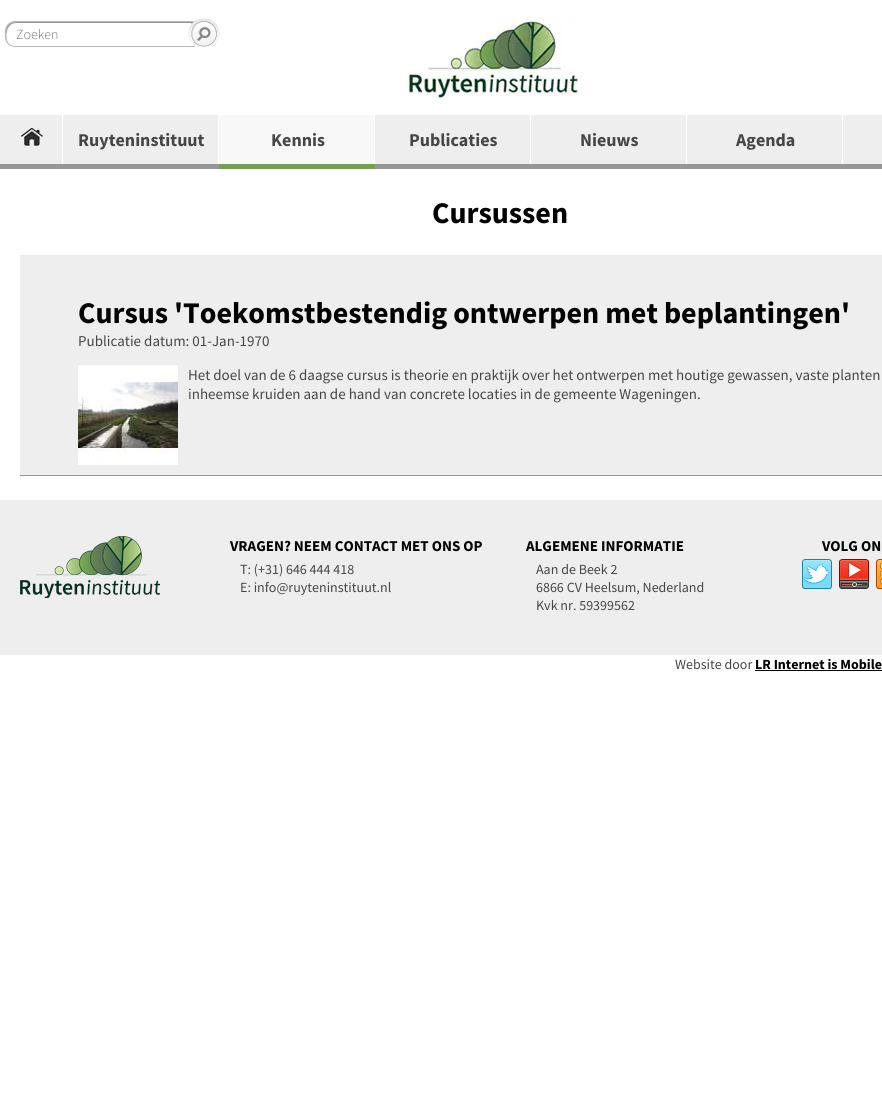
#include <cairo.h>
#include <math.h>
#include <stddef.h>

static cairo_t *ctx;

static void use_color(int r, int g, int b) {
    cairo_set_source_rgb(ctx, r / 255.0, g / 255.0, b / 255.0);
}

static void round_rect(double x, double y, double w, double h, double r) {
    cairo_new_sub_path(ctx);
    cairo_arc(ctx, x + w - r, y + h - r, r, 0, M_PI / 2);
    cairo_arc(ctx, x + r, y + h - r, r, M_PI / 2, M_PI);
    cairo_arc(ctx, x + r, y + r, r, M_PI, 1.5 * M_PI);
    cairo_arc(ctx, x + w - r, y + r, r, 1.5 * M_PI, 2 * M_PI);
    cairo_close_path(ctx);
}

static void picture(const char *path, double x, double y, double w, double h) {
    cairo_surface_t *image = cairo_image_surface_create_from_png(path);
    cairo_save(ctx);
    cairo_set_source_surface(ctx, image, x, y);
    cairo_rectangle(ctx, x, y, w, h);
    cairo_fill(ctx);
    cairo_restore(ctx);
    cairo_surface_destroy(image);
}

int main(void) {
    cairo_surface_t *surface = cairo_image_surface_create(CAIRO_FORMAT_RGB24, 882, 1111);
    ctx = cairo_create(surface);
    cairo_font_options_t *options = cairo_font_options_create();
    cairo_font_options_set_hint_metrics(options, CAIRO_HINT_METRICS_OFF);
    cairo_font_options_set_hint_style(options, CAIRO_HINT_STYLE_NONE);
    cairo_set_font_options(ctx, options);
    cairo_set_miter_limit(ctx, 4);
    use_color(255, 255, 255);
    cairo_paint(ctx);
    use_color(150, 150, 150);
    cairo_new_path(ctx);
    cairo_move_to(ctx, 16, 23);
    cairo_line_to(ctx, 208, 23);
    cairo_curve_to(ctx, 211, 23, 213, 24, 214, 26);
    cairo_curve_to(ctx, 213, 24, 210, 22, 207, 22);
    cairo_line_to(ctx, 15, 22);
    cairo_curve_to(ctx, 10, 22, 6, 26, 6, 31);
    cairo_line_to(ctx, 6, 37);
    cairo_curve_to(ctx, 6, 40, 7, 42, 9, 44);
    cairo_curve_to(ctx, 4, 38, 6, 23, 16, 23);
    cairo_close_path(ctx);
    cairo_fill(ctx);
    round_rect(5.5, 21.5, 211, 25, 9.5);
    use_color(185, 183, 183);
    cairo_set_line_width(ctx, 1);
    cairo_stroke(ctx);
    cairo_select_font_face(ctx, "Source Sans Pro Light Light", CAIRO_FONT_SLANT_NORMAL, CAIRO_FONT_WEIGHT_NORMAL);
    cairo_set_font_size(ctx, 14);
    use_color(117, 117, 117);
    cairo_move_to(ctx, 16, 39);
    cairo_show_text(ctx, "Zoeken");
    picture("img1.png", 188, 18, 32, 29);
    picture("img2.png", 404, 18, 176, 81);
    use_color(238, 238, 238);
    cairo_rectangle(ctx, 0, 115, 62, 49);
    cairo_fill(ctx);
    use_color(150, 150, 150);
    cairo_rectangle(ctx, 0, 164, 220, 5);
    cairo_fill(ctx);
    picture("img3.png", 21, 128, 22, 18);
    use_color(238, 238, 238);
    cairo_rectangle(ctx, 843, 115, 39, 49);
    cairo_fill(ctx);
    cairo_rectangle(ctx, 63, 115, 155, 49);
    cairo_fill(ctx);
    cairo_select_font_face(ctx, "Source Sans Pro", CAIRO_FONT_SLANT_NORMAL, CAIRO_FONT_WEIGHT_BOLD);
    cairo_set_font_size(ctx, 18);
    use_color(70, 70, 70);
    cairo_move_to(ctx, 78, 146);
    cairo_show_text(ctx, "Ruyteninstituut");
    use_color(248, 248, 248);
    cairo_rectangle(ctx, 219, 115, 155, 49);
    cairo_fill(ctx);
    use_color(115, 161, 83);
    cairo_rectangle(ctx, 219, 164, 157, 5);
    cairo_fill(ctx);
    use_color(70, 70, 70);
    cairo_move_to(ctx, 271, 146);
    cairo_show_text(ctx, "Kennis");
    use_color(238, 238, 238);
    cairo_rectangle(ctx, 375, 115, 155, 49);
    cairo_fill(ctx);
    use_color(150, 150, 150);
    cairo_rectangle(ctx, 375, 164, 507, 5);
    cairo_fill(ctx);
    use_color(70, 70, 70);
    cairo_move_to(ctx, 409, 146);
    cairo_show_text(ctx, "Publicaties");
    use_color(238, 238, 238);
    cairo_rectangle(ctx, 531, 115, 155, 49);
    cairo_fill(ctx);
    use_color(70, 70, 70);
    cairo_move_to(ctx, 580, 146);
    cairo_show_text(ctx, "Nieuws");
    use_color(238, 238, 238);
    cairo_rectangle(ctx, 687, 115, 155, 49);
    cairo_fill(ctx);
    use_color(70, 70, 70);
    cairo_move_to(ctx, 736, 146);
    cairo_show_text(ctx, "Agenda");
    cairo_set_font_size(ctx, 30);
    use_color(0, 0, 0);
    cairo_move_to(ctx, 432, 223);
    cairo_show_text(ctx, "Cursussen");
    use_color(238, 238, 238);
    cairo_rectangle(ctx, 20, 255, 862, 220);
    cairo_fill(ctx);
    use_color(150, 150, 150);
    cairo_rectangle(ctx, 20, 475, 862, 1);
    cairo_fill(ctx);
    use_color(0, 0, 0);
    cairo_move_to(ctx, 78, 323);
    cairo_show_text(ctx, "Cursus 'Toekomstbestendig ontwerpen met beplantingen'");
    cairo_select_font_face(ctx, "Source Sans Pro", CAIRO_FONT_SLANT_NORMAL, CAIRO_FONT_WEIGHT_NORMAL);
    cairo_set_font_size(ctx, 15);
    use_color(70, 70, 70);
    cairo_move_to(ctx, 78, 346);
    cairo_show_text(ctx, "Publicatie datum: 01-Jan-1970");
    picture("img4.png", 78, 365, 100, 100);
    cairo_move_to(ctx, 188, 380);
    cairo_show_text(ctx, "Het doel van de 6 daagse cursus is theorie en praktijk over het ontwerpen met houtige gewassen, vaste planten");
    cairo_move_to(ctx, 188, 399);
    cairo_show_text(ctx, "inheemse kruiden aan de hand van concrete locaties in de gemeente Wageningen.");
    use_color(238, 238, 238);
    cairo_rectangle(ctx, 0, 500, 882, 155);
    cairo_fill(ctx);
    picture("img5.png", 20, 536, 140, 62);
    cairo_select_font_face(ctx, "Source Sans Pro", CAIRO_FONT_SLANT_NORMAL, CAIRO_FONT_WEIGHT_BOLD);
    use_color(0, 0, 0);
    cairo_move_to(ctx, 230, 551);
    cairo_show_text(ctx, "VRAGEN? NEEM CONTACT MET ONS OP");
    cairo_select_font_face(ctx, "Source Sans Pro", CAIRO_FONT_SLANT_NORMAL, CAIRO_FONT_WEIGHT_NORMAL);
    cairo_set_font_size(ctx, 14);
    use_color(70, 70, 70);
    cairo_move_to(ctx, 240, 574);
    cairo_show_text(ctx, "T: (+31) 646 444 418");
    cairo_move_to(ctx, 240, 592);
    cairo_show_text(ctx, "E: info@ruyteninstituut.nl");
    cairo_select_font_face(ctx, "Source Sans Pro", CAIRO_FONT_SLANT_NORMAL, CAIRO_FONT_WEIGHT_BOLD);
    cairo_set_font_size(ctx, 15);
    use_color(0, 0, 0);
    cairo_move_to(ctx, 526, 551);
    cairo_show_text(ctx, "ALGEMENE INFORMATIE");
    cairo_select_font_face(ctx, "Source Sans Pro", CAIRO_FONT_SLANT_NORMAL, CAIRO_FONT_WEIGHT_NORMAL);
    cairo_set_font_size(ctx, 14);
    use_color(70, 70, 70);
    cairo_move_to(ctx, 536, 574);
    cairo_show_text(ctx, "Aan de Beek 2");
    cairo_move_to(ctx, 536, 592);
    cairo_show_text(ctx, "6866 CV Heelsum, Nederland");
    cairo_move_to(ctx, 536, 610);
    cairo_show_text(ctx, "Kvk nr. 59399562");
    cairo_select_font_face(ctx, "Source Sans Pro", CAIRO_FONT_SLANT_NORMAL, CAIRO_FONT_WEIGHT_BOLD);
    cairo_set_font_size(ctx, 15);
    use_color(0, 0, 0);
    cairo_move_to(ctx, 822, 551);
    cairo_show_text(ctx, "VOLG ON");
    picture("img6.png", 802, 559, 30, 30);
    picture("img7.png", 839, 559, 30, 30);
    picture("img8.png", 876, 559, 6, 30);
    cairo_select_font_face(ctx, "Source Sans Pro", CAIRO_FONT_SLANT_NORMAL, CAIRO_FONT_WEIGHT_NORMAL);
    cairo_set_font_size(ctx, 14);
    use_color(70, 70, 70);
    cairo_move_to(ctx, 675, 669);
    cairo_show_text(ctx, "Website door");
    cairo_select_font_face(ctx, "Source Sans Pro", CAIRO_FONT_SLANT_NORMAL, CAIRO_FONT_WEIGHT_BOLD);
    use_color(0, 0, 0);
    cairo_move_to(ctx, 755, 669);
    cairo_show_text(ctx, "LR Internet is Mobile");
    cairo_rectangle(ctx, 755, 670, 127, 1);
    cairo_fill(ctx);
    cairo_surface_write_to_png(surface, "result.png");
    cairo_font_options_destroy(options);
    cairo_destroy(ctx);
    cairo_surface_destroy(surface);
    return 0;
}
